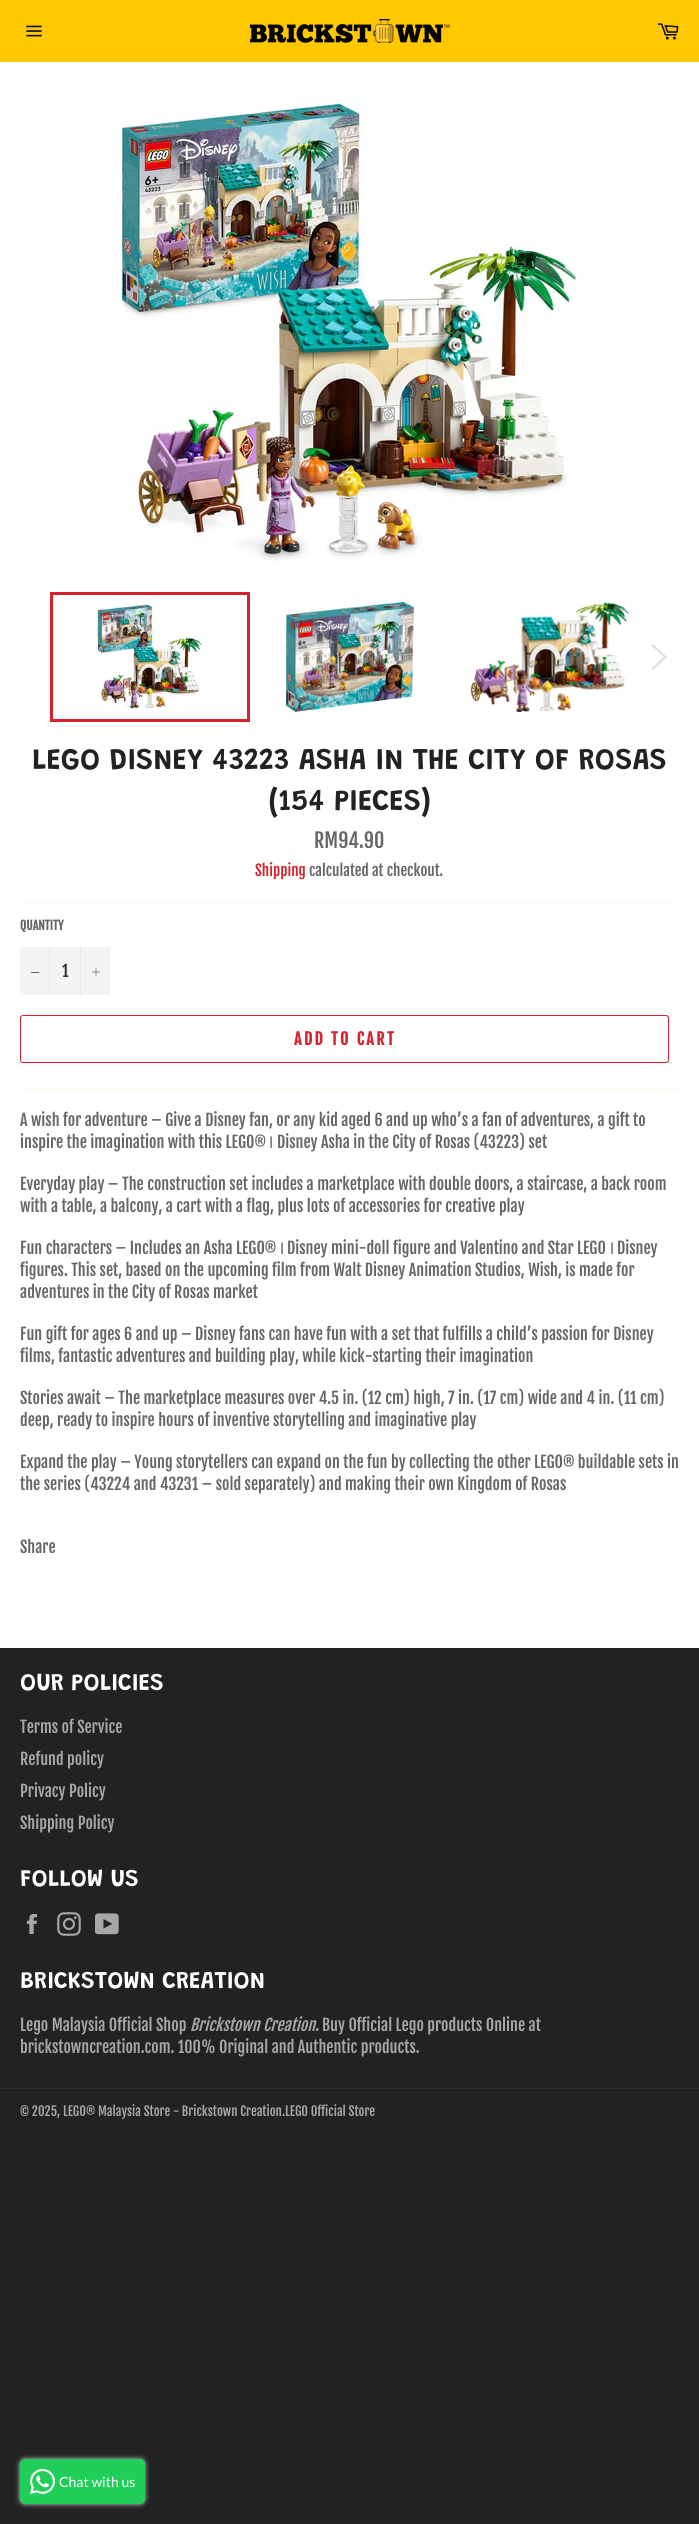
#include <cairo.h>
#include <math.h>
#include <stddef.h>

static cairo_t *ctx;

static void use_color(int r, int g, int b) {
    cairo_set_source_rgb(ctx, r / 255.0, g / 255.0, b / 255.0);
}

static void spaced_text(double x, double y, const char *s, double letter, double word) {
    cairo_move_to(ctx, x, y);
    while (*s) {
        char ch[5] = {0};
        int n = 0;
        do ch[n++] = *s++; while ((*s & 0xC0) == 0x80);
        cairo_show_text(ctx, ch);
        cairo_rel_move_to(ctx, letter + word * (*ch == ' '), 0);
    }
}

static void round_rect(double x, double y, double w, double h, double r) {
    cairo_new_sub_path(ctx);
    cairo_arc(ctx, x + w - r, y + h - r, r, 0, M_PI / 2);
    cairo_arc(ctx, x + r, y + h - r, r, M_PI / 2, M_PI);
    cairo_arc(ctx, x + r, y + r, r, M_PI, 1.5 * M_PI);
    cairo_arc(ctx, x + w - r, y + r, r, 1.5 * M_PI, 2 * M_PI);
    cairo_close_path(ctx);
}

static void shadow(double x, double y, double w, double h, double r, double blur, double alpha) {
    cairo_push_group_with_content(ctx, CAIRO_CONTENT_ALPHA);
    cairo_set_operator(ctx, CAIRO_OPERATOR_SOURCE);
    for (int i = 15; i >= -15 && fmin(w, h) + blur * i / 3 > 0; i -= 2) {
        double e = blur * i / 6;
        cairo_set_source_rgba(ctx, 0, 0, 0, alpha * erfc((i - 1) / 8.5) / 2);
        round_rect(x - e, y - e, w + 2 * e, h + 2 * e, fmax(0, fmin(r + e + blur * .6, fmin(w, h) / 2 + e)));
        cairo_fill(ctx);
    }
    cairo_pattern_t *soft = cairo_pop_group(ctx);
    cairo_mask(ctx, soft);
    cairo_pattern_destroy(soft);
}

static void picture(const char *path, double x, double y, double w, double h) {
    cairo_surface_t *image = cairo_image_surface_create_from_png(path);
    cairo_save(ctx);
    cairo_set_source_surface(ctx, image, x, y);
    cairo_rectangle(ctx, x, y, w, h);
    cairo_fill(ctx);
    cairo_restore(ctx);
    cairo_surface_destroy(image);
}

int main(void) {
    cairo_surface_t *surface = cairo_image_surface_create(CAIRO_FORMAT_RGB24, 699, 2524);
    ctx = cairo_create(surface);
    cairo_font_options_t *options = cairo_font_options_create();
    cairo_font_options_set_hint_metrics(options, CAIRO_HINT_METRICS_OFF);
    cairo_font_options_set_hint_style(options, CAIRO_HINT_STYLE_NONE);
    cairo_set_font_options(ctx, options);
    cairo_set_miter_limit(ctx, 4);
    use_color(34, 34, 34);
    cairo_paint(ctx);
    use_color(255, 200, 0);
    cairo_rectangle(ctx, 0, 0, 699, 62);
    cairo_fill(ctx);
    picture("img1.png", 26, 25, 16, 12);
    picture("img2.png", 250, 19, 200, 24);
    picture("img3.png", 657, 23, 22, 17);
    use_color(255, 255, 255);
    cairo_rectangle(ctx, 0, 62, 699, 1586);
    cairo_fill(ctx);
    picture("img4.png", 118, 100, 464, 461);
    picture("img5.png", 95, 602, 109, 108);
    cairo_rectangle(ctx, 51.5, 593.5, 197, 127);
    use_color(216, 35, 47);
    cairo_set_line_width(ctx, 3);
    cairo_stroke(ctx);
    picture("img6.png", 286, 602, 128, 110);
    picture("img7.png", 471, 602, 158, 110);
    use_color(224, 224, 224);
    cairo_new_path(ctx);
    cairo_move_to(ctx, 651, 645.5);
    cairo_line_to(ctx, 653, 644);
    cairo_line_to(ctx, 667, 657);
    cairo_line_to(ctx, 653, 670);
    cairo_line_to(ctx, 651, 668.5);
    cairo_line_to(ctx, 663.5, 657);
    cairo_close_path(ctx);
    cairo_fill(ctx);
    cairo_select_font_face(ctx, "Grandstander SemiBold", CAIRO_FONT_SLANT_NORMAL, CAIRO_FONT_WEIGHT_NORMAL);
    cairo_set_font_size(ctx, 30);
    use_color(34, 34, 34);
    cairo_move_to(ctx, 32, 769);
    cairo_show_text(ctx, "LEGO DISNEY 43223 ASHA IN THE CITY OF ROSAS");
    cairo_move_to(ctx, 269, 810);
    cairo_show_text(ctx, "(154 PIECES)");
    cairo_select_font_face(ctx, "Fjalla One", CAIRO_FONT_SLANT_NORMAL, CAIRO_FONT_WEIGHT_NORMAL);
    cairo_set_font_size(ctx, 20);
    use_color(102, 102, 102);
    cairo_move_to(ctx, 314, 848);
    cairo_show_text(ctx, "RM94.90");
    cairo_set_font_size(ctx, 15);
    use_color(216, 35, 47);
    cairo_move_to(ctx, 255, 876);
    cairo_show_text(ctx, "Shipping");
    use_color(102, 102, 102);
    cairo_move_to(ctx, 309, 876);
    cairo_show_text(ctx, "calculated at checkout.");
    use_color(252, 250, 234);
    cairo_rectangle(ctx, 20, 902, 659, 1);
    cairo_fill(ctx);
    cairo_select_font_face(ctx, "Fjalla One", CAIRO_FONT_SLANT_NORMAL, CAIRO_FONT_WEIGHT_BOLD);
    cairo_set_font_size(ctx, 12);
    use_color(102, 102, 102);
    cairo_move_to(ctx, 20, 930);
    cairo_show_text(ctx, "QUANTITY");
    use_color(244, 244, 244);
    cairo_rectangle(ctx, 20, 947, 90, 48);
    cairo_fill(ctx);
    use_color(231, 231, 231);
    cairo_rectangle(ctx, 49, 947, 1, 48);
    cairo_fill(ctx);
    use_color(102, 102, 102);
    cairo_rectangle(ctx, 31, 972, 8, 1);
    cairo_fill(ctx);
    cairo_select_font_face(ctx, "Fjalla One", CAIRO_FONT_SLANT_NORMAL, CAIRO_FONT_WEIGHT_NORMAL);
    cairo_set_font_size(ctx, 16);
    use_color(51, 51, 51);
    cairo_move_to(ctx, 62, 977);
    cairo_show_text(ctx, "1");
    use_color(231, 231, 231);
    cairo_rectangle(ctx, 80, 947, 1, 48);
    cairo_fill(ctx);
    picture("img8.png", 92, 968, 8, 8);
    round_rect(20.5, 1015.5, 648, 47, 2.5);
    use_color(216, 35, 47);
    cairo_set_line_width(ctx, 1);
    cairo_stroke(ctx);
    cairo_select_font_face(ctx, "Fjalla One", CAIRO_FONT_SLANT_NORMAL, CAIRO_FONT_WEIGHT_BOLD);
    spaced_text(294, 1045, "ADD TO CART", 2.4, 0);
    use_color(252, 250, 234);
    cairo_rectangle(ctx, 20, 1088, 659, 1);
    cairo_fill(ctx);
    cairo_select_font_face(ctx, "Fjalla One", CAIRO_FONT_SLANT_NORMAL, CAIRO_FONT_WEIGHT_NORMAL);
    use_color(102, 102, 102);
    cairo_move_to(ctx, 20, 1126);
    cairo_show_text(ctx, "A wish for adventure – Give a Disney fan, or any kid aged 6 and up who’s a fan of adventures, a gift to");
    cairo_move_to(ctx, 20, 1148);
    cairo_show_text(ctx, "inspire the imagination with this LEGO®");
    cairo_select_font_face(ctx, "Liberation Sans", CAIRO_FONT_SLANT_NORMAL, CAIRO_FONT_WEIGHT_NORMAL);
    cairo_move_to(ctx, 269, 1148);
    cairo_show_text(ctx, "ǀ");
    cairo_select_font_face(ctx, "Fjalla One", CAIRO_FONT_SLANT_NORMAL, CAIRO_FONT_WEIGHT_NORMAL);
    cairo_move_to(ctx, 277, 1148);
    cairo_show_text(ctx, "Disney Asha in the City of Rosas (43223) set");
    cairo_move_to(ctx, 20, 1190);
    cairo_show_text(ctx, "Everyday play – The construction set includes a marketplace with double doors, a staircase, a back room");
    cairo_move_to(ctx, 20, 1212);
    cairo_show_text(ctx, "with a table, a balcony, a cart with a flag, plus lots of accessories for creative play");
    cairo_move_to(ctx, 20, 1254);
    cairo_show_text(ctx, "Fun characters – Includes an Asha LEGO®");
    cairo_select_font_face(ctx, "Liberation Sans", CAIRO_FONT_SLANT_NORMAL, CAIRO_FONT_WEIGHT_NORMAL);
    cairo_move_to(ctx, 280, 1254);
    cairo_show_text(ctx, "ǀ");
    cairo_select_font_face(ctx, "Fjalla One", CAIRO_FONT_SLANT_NORMAL, CAIRO_FONT_WEIGHT_NORMAL);
    cairo_move_to(ctx, 287, 1254);
    cairo_show_text(ctx, "Disney mini-doll figure and Valentino and Star LEGO");
    cairo_select_font_face(ctx, "Liberation Sans", CAIRO_FONT_SLANT_NORMAL, CAIRO_FONT_WEIGHT_NORMAL);
    cairo_move_to(ctx, 610, 1254);
    cairo_show_text(ctx, "ǀ");
    cairo_select_font_face(ctx, "Fjalla One", CAIRO_FONT_SLANT_NORMAL, CAIRO_FONT_WEIGHT_NORMAL);
    cairo_move_to(ctx, 617, 1254);
    cairo_show_text(ctx, "Disney");
    cairo_move_to(ctx, 20, 1276);
    cairo_show_text(ctx, "figures. This set, based on the upcoming film from Walt Disney Animation Studios, Wish, is made for");
    cairo_move_to(ctx, 20, 1298);
    cairo_show_text(ctx, "adventures in the City of Rosas market");
    cairo_move_to(ctx, 20, 1340);
    cairo_show_text(ctx, "Fun gift for ages 6 and up – Disney fans can have fun with a set that fulfills a child’s passion for Disney");
    cairo_move_to(ctx, 20, 1362);
    cairo_show_text(ctx, "films, fantastic adventures and building play, while kick-starting their imagination");
    cairo_move_to(ctx, 20, 1404);
    cairo_show_text(ctx, "Stories await – The marketplace measures over 4.5 in. (12 cm) high, 7 in. (17 cm) wide and 4 in. (11 cm)");
    cairo_move_to(ctx, 20, 1426);
    cairo_show_text(ctx, "deep, ready to inspire hours of inventive storytelling and imaginative play");
    cairo_move_to(ctx, 20, 1468);
    cairo_show_text(ctx, "Expand the play – Young storytellers can expand on the fun by collecting the other LEGO® buildable sets in");
    cairo_move_to(ctx, 20, 1490);
    cairo_show_text(ctx, "the series (43224 and 43231 – sold separately) and making their own Kingdom of Rosas");
    use_color(252, 250, 234);
    cairo_rectangle(ctx, 20, 1515, 659, 1);
    cairo_fill(ctx);
    use_color(102, 102, 102);
    cairo_move_to(ctx, 20, 1553);
    cairo_show_text(ctx, "Share");
    cairo_select_font_face(ctx, "Grandstander SemiBold", CAIRO_FONT_SLANT_NORMAL, CAIRO_FONT_WEIGHT_NORMAL);
    cairo_set_font_size(ctx, 24);
    use_color(255, 255, 255);
    cairo_move_to(ctx, 20, 1690);
    cairo_show_text(ctx, "OUR POLICIES");
    cairo_select_font_face(ctx, "Fjalla One", CAIRO_FONT_SLANT_NORMAL, CAIRO_FONT_WEIGHT_NORMAL);
    cairo_set_font_size(ctx, 16);
    use_color(167, 167, 167);
    cairo_move_to(ctx, 20, 1733);
    cairo_show_text(ctx, "Terms of Service");
    cairo_move_to(ctx, 20, 1765);
    cairo_show_text(ctx, "Refund policy");
    cairo_move_to(ctx, 20, 1797);
    cairo_show_text(ctx, "Privacy Policy");
    cairo_move_to(ctx, 20, 1829);
    cairo_show_text(ctx, "Shipping Policy");
    cairo_select_font_face(ctx, "Grandstander SemiBold", CAIRO_FONT_SLANT_NORMAL, CAIRO_FONT_WEIGHT_NORMAL);
    cairo_set_font_size(ctx, 24);
    use_color(255, 255, 255);
    cairo_move_to(ctx, 20, 1886);
    cairo_show_text(ctx, "FOLLOW US");
    picture("img9.png", 27, 1914, 10, 20);
    picture("img10.png", 57, 1912, 24, 24);
    picture("img11.png", 95, 1913, 24, 22);
    cairo_move_to(ctx, 20, 1988);
    cairo_show_text(ctx, "BRICKSTOWN CREATION");
    cairo_select_font_face(ctx, "Fjalla One", CAIRO_FONT_SLANT_NORMAL, CAIRO_FONT_WEIGHT_NORMAL);
    cairo_set_font_size(ctx, 16);
    use_color(167, 167, 167);
    cairo_move_to(ctx, 20, 2031);
    cairo_show_text(ctx, "Lego Malaysia Official Shop");
    cairo_select_font_face(ctx, "Fjalla One", CAIRO_FONT_SLANT_ITALIC, CAIRO_FONT_WEIGHT_NORMAL);
    cairo_move_to(ctx, 190, 2031);
    cairo_show_text(ctx, "Brickstown Creation.");
    cairo_select_font_face(ctx, "Fjalla One", CAIRO_FONT_SLANT_NORMAL, CAIRO_FONT_WEIGHT_NORMAL);
    cairo_move_to(ctx, 322, 2031);
    cairo_show_text(ctx, "Buy Official Lego products Online at");
    cairo_move_to(ctx, 20, 2053);
    cairo_show_text(ctx, "brickstowncreation.com. 100% Original and Authentic products.");
    use_color(47, 47, 47);
    cairo_rectangle(ctx, 0, 2088, 699, 1);
    cairo_fill(ctx);
    cairo_set_font_size(ctx, 12.8);
    use_color(167, 167, 167);
    cairo_move_to(ctx, 20, 2116);
    cairo_show_text(ctx, "© 2025, LEGO® Malaysia Store - Brickstown Creation.LEGO Official Store");
    use_color(211, 211, 211);
    shadow(20, 2459, 125, 45, 5, 2.5, 1);
    use_color(34, 206, 90);
    round_rect(20, 2459, 125, 45, 5);
    cairo_fill(ctx);
    picture("img12.png", 30, 2469, 25, 25);
    cairo_select_font_face(ctx, "Lato", CAIRO_FONT_SLANT_NORMAL, CAIRO_FONT_WEIGHT_NORMAL);
    cairo_set_font_size(ctx, 14);
    use_color(255, 255, 255);
    cairo_move_to(ctx, 59, 2487);
    cairo_show_text(ctx, "Chat with us");
    cairo_surface_write_to_png(surface, "result.png");
    cairo_font_options_destroy(options);
    cairo_destroy(ctx);
    cairo_surface_destroy(surface);
    return 0;
}
